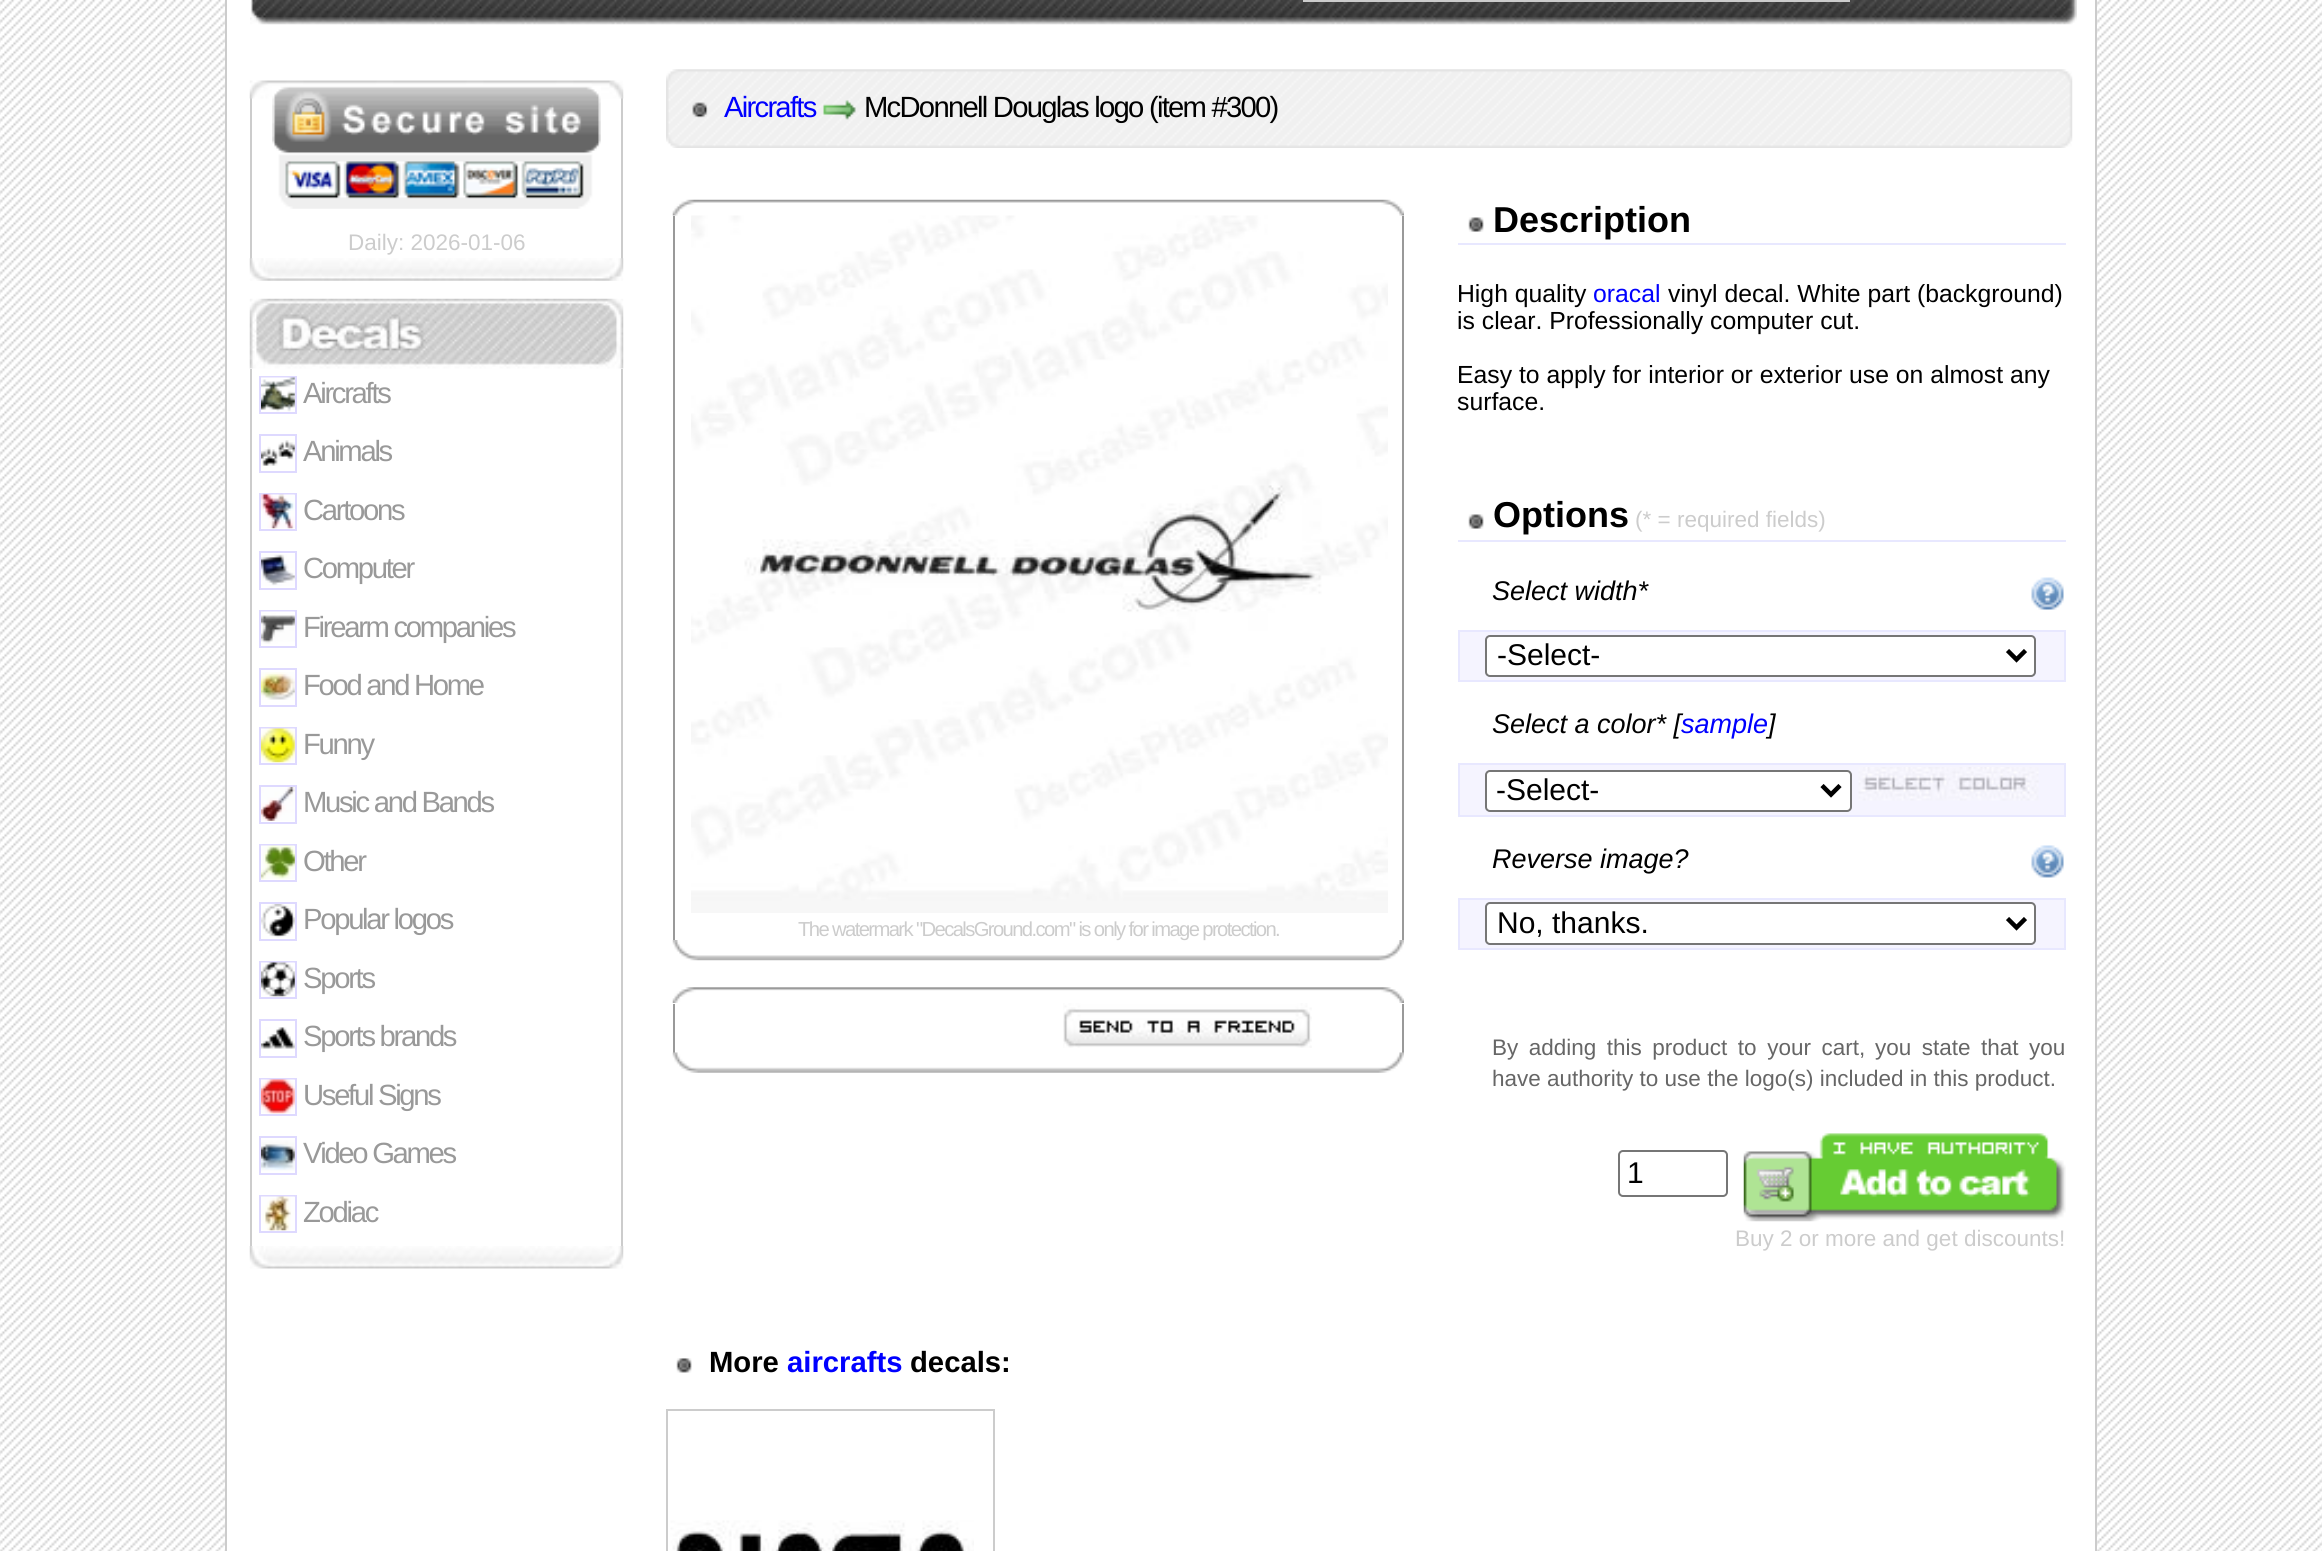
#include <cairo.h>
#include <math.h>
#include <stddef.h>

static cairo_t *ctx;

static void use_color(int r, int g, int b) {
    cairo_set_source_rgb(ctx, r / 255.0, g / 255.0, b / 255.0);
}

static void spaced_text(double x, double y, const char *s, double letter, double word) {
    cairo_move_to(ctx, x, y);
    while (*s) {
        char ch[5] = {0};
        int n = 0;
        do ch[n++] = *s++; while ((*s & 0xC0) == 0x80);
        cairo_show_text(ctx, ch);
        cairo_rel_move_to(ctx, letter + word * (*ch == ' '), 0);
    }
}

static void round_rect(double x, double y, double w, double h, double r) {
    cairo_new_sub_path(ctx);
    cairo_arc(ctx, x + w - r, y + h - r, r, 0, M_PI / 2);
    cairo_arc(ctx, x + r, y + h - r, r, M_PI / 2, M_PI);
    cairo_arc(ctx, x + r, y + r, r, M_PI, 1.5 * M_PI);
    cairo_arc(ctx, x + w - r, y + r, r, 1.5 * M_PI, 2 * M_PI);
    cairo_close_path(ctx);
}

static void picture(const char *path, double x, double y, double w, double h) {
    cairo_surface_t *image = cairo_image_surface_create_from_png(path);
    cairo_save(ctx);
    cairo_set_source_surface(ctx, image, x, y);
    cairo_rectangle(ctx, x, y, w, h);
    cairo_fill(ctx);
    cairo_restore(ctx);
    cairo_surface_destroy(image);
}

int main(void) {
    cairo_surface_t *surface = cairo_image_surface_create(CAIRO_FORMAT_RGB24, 2322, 1551);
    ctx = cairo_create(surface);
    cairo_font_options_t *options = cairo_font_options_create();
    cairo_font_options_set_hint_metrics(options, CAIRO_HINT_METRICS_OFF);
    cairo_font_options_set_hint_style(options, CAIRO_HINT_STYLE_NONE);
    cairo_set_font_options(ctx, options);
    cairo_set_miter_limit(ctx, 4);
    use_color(255, 255, 255);
    cairo_paint(ctx);
    picture("img1.png", 0, 0, 2322, 1551);
    use_color(255, 255, 255);
    cairo_rectangle(ctx, 227, 0, 1868, 1551);
    cairo_fill(ctx);
    use_color(204, 204, 204);
    cairo_rectangle(ctx, 2095, 0, 2, 1551);
    cairo_fill(ctx);
    cairo_rectangle(ctx, 225, 0, 2, 1551);
    cairo_fill(ctx);
    picture("img2.png", 250, 0, 1827, 25);
    cairo_rectangle(ctx, 1304, -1, 545, 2);
    cairo_stroke(ctx);
    cairo_rectangle(ctx, 621, 98, 2, 161);
    cairo_fill(ctx);
    cairo_rectangle(ctx, 250, 98, 2, 161);
    cairo_fill(ctx);
    picture("img3.png", 249, 80, 375, 19);
    picture("img4.png", 272, 86, 329, 123);
    cairo_select_font_face(ctx, "Liberation Sans", CAIRO_FONT_SLANT_NORMAL, CAIRO_FONT_WEIGHT_NORMAL);
    cairo_set_font_size(ctx, 22.5);
    cairo_move_to(ctx, 348, 250);
    cairo_show_text(ctx, "Daily: 2026-01-06");
    picture("img5.png", 249, 258, 375, 23);
    picture("img6.png", 249, 298, 375, 71);
    cairo_rectangle(ctx, 621, 369, 2, 878);
    cairo_fill(ctx);
    cairo_rectangle(ctx, 250, 369, 2, 878);
    cairo_fill(ctx);
    cairo_rectangle(ctx, 260, 377, 36, 36);
    use_color(222, 217, 255);
    cairo_stroke(ctx);
    picture("img7.png", 261, 377, 34, 35);
    cairo_set_font_size(ctx, 29.25);
    use_color(153, 153, 153);
    spaced_text(303, 403, "Aircrafts", -2.3, 0);
    cairo_rectangle(ctx, 260, 435, 36, 37);
    use_color(222, 217, 255);
    cairo_stroke(ctx);
    use_color(153, 153, 153);
    spaced_text(303, 461, "Animals", -2.3, 0);
    picture("img8.png", 261, 440, 34, 26);
    cairo_rectangle(ctx, 260, 494, 36, 36);
    use_color(222, 217, 255);
    cairo_stroke(ctx);
    picture("img9.png", 261, 494, 34, 35);
    use_color(153, 153, 153);
    spaced_text(303, 520, "Cartoons", -2.3, 0);
    cairo_rectangle(ctx, 260, 552, 36, 37);
    use_color(222, 217, 255);
    cairo_stroke(ctx);
    picture("img10.png", 261, 554, 34, 32);
    use_color(153, 153, 153);
    spaced_text(303, 578, "Computer", -2.3, 0);
    cairo_rectangle(ctx, 260, 611, 36, 36);
    use_color(222, 217, 255);
    cairo_stroke(ctx);
    picture("img11.png", 261, 611, 34, 33);
    use_color(153, 153, 153);
    spaced_text(303, 637, "Firearm companies", -2.3, 0);
    cairo_rectangle(ctx, 260, 669, 36, 37);
    use_color(222, 217, 255);
    cairo_stroke(ctx);
    picture("img12.png", 261, 672, 34, 28);
    use_color(153, 153, 153);
    spaced_text(303, 695, "Food and Home", -2.3, 0);
    cairo_rectangle(ctx, 260, 728, 36, 36);
    use_color(222, 217, 255);
    cairo_stroke(ctx);
    picture("img13.png", 261, 728, 34, 35);
    use_color(153, 153, 153);
    spaced_text(303, 754, "Funny", -2.3, 0);
    cairo_rectangle(ctx, 260, 786, 36, 37);
    use_color(222, 217, 255);
    cairo_stroke(ctx);
    picture("img14.png", 261, 787, 34, 34);
    use_color(153, 153, 153);
    spaced_text(303, 812, "Music and Bands", -2.3, 0);
    cairo_rectangle(ctx, 260, 845, 36, 36);
    use_color(222, 217, 255);
    cairo_stroke(ctx);
    picture("img15.png", 261, 845, 34, 35);
    use_color(153, 153, 153);
    spaced_text(303, 871, "Other", -2.3, 0);
    cairo_rectangle(ctx, 260, 903, 36, 37);
    use_color(222, 217, 255);
    cairo_stroke(ctx);
    picture("img16.png", 261, 904, 34, 34);
    use_color(153, 153, 153);
    spaced_text(303, 929, "Popular logos", -2.3, 0);
    cairo_rectangle(ctx, 260, 962, 36, 36);
    use_color(222, 217, 255);
    cairo_stroke(ctx);
    picture("img17.png", 261, 962, 34, 35);
    use_color(153, 153, 153);
    spaced_text(303, 988, "Sports", -2.3, 0);
    cairo_rectangle(ctx, 260, 1020, 36, 37);
    use_color(222, 217, 255);
    cairo_stroke(ctx);
    use_color(153, 153, 153);
    spaced_text(303, 1046, "Sports brands", -2.3, 0);
    picture("img18.png", 261, 1027, 34, 22);
    cairo_rectangle(ctx, 260, 1079, 36, 36);
    use_color(222, 217, 255);
    cairo_stroke(ctx);
    picture("img19.png", 261, 1079, 34, 35);
    use_color(153, 153, 153);
    spaced_text(303, 1105, "Useful Signs", -2.3, 0);
    cairo_rectangle(ctx, 260, 1137, 36, 37);
    use_color(222, 217, 255);
    cairo_stroke(ctx);
    picture("img20.png", 261, 1140, 34, 31);
    use_color(153, 153, 153);
    spaced_text(303, 1163, "Video Games", -2.3, 0);
    cairo_rectangle(ctx, 260, 1196, 36, 36);
    use_color(222, 217, 255);
    cairo_stroke(ctx);
    picture("img21.png", 261, 1196, 34, 35);
    use_color(153, 153, 153);
    spaced_text(303, 1222, "Zodiac", -2.3, 0);
    picture("img22.png", 249, 1246, 375, 23);
    picture("img23.png", 666, 69, 1407, 79);
    picture("img24.png", 692, 102, 16, 16);
    use_color(0, 0, 255);
    spaced_text(724, 117, "Aircrafts", -1.75, 0);
    picture("img25.png", 823, 100, 33, 20);
    use_color(0, 0, 0);
    spaced_text(864, 117, "McDonnell Douglas logo (item #300)", -1.75, 0);
    picture("img26.png", 672, 199, 732, 17);
    use_color(153, 153, 153);
    cairo_rectangle(ctx, 1402, 216, 2, 725);
    cairo_fill(ctx);
    cairo_rectangle(ctx, 673, 216, 2, 725);
    cairo_fill(ctx);
    picture("img27.png", 691, 215, 697, 698);
    picture("img28.png", 672, 940, 732, 21);
    cairo_set_font_size(ctx, 20.25);
    use_color(204, 204, 204);
    spaced_text(798, 936, "The watermark \"DecalsGround.com\" is only for image protection.", -1.62, 0);
    picture("img29.png", 672, 987, 732, 16);
    use_color(153, 153, 153);
    cairo_rectangle(ctx, 1402, 1004, 2, 49);
    cairo_fill(ctx);
    cairo_rectangle(ctx, 673, 1004, 2, 49);
    cairo_fill(ctx);
    picture("img30.png", 1063, 1003, 249, 45);
    picture("img31.png", 672, 1052, 732, 21);
    use_color(232, 232, 255);
    cairo_rectangle(ctx, 1458, 243, 608, 2);
    cairo_fill(ctx);
    picture("img32.png", 1468, 217, 16, 15);
    cairo_select_font_face(ctx, "Liberation Sans", CAIRO_FONT_SLANT_NORMAL, CAIRO_FONT_WEIGHT_BOLD);
    cairo_set_font_size(ctx, 36);
    use_color(0, 0, 0);
    cairo_move_to(ctx, 1493, 232);
    cairo_show_text(ctx, "Description");
    cairo_select_font_face(ctx, "Liberation Sans", CAIRO_FONT_SLANT_NORMAL, CAIRO_FONT_WEIGHT_NORMAL);
    cairo_set_font_size(ctx, 24.75);
    cairo_move_to(ctx, 1457, 302);
    cairo_show_text(ctx, "High quality");
    use_color(0, 0, 255);
    cairo_move_to(ctx, 1593, 302);
    cairo_show_text(ctx, "oracal");
    use_color(0, 0, 0);
    cairo_move_to(ctx, 1668, 302);
    cairo_show_text(ctx, "vinyl decal. White part (background)");
    cairo_move_to(ctx, 1457, 329);
    cairo_show_text(ctx, "is clear. Professionally computer cut.");
    cairo_move_to(ctx, 1457, 383);
    cairo_show_text(ctx, "Easy to apply for interior or exterior use on almost any");
    cairo_move_to(ctx, 1457, 410);
    cairo_show_text(ctx, "surface.");
    use_color(232, 232, 255);
    cairo_rectangle(ctx, 1458, 540, 608, 2);
    cairo_fill(ctx);
    picture("img32.png", 1468, 514, 16, 15);
    cairo_select_font_face(ctx, "Liberation Sans", CAIRO_FONT_SLANT_NORMAL, CAIRO_FONT_WEIGHT_BOLD);
    cairo_set_font_size(ctx, 36);
    use_color(0, 0, 0);
    cairo_move_to(ctx, 1493, 527);
    cairo_show_text(ctx, "Options");
    cairo_select_font_face(ctx, "Liberation Sans", CAIRO_FONT_SLANT_NORMAL, CAIRO_FONT_WEIGHT_NORMAL);
    cairo_set_font_size(ctx, 22.5);
    use_color(204, 204, 204);
    cairo_move_to(ctx, 1635, 527);
    cairo_show_text(ctx, "(* = required fields)");
    cairo_select_font_face(ctx, "Liberation Sans", CAIRO_FONT_SLANT_ITALIC, CAIRO_FONT_WEIGHT_NORMAL);
    cairo_set_font_size(ctx, 27);
    use_color(0, 0, 0);
    cairo_move_to(ctx, 1492, 600);
    cairo_show_text(ctx, "Select width*");
    picture("img33.png", 2031, 577, 33, 33);
    use_color(245, 244, 255);
    cairo_rectangle(ctx, 1459, 631, 606, 50);
    cairo_fill_preserve(ctx);
    use_color(232, 232, 255);
    cairo_stroke(ctx);
    use_color(255, 255, 255);
    round_rect(1486, 636, 549, 40, 4);
    cairo_fill_preserve(ctx);
    use_color(118, 118, 118);
    cairo_stroke(ctx);
    cairo_new_path(ctx);
    cairo_move_to(ctx, 2007.5, 650.5);
    cairo_line_to(ctx, 2016.5, 659.5);
    cairo_line_to(ctx, 2025.5, 650.5);
    use_color(0, 0, 0);
    cairo_set_line_width(ctx, 4.5);
    cairo_stroke(ctx);
    cairo_select_font_face(ctx, "Liberation Sans", CAIRO_FONT_SLANT_NORMAL, CAIRO_FONT_WEIGHT_NORMAL);
    cairo_set_font_size(ctx, 30);
    cairo_move_to(ctx, 1497, 665);
    cairo_show_text(ctx, "-Select-");
    cairo_select_font_face(ctx, "Liberation Sans", CAIRO_FONT_SLANT_ITALIC, CAIRO_FONT_WEIGHT_NORMAL);
    cairo_set_font_size(ctx, 27);
    cairo_move_to(ctx, 1492, 733);
    cairo_show_text(ctx, "Select a color* [");
    use_color(0, 0, 255);
    cairo_move_to(ctx, 1681, 733);
    cairo_show_text(ctx, "sample");
    use_color(0, 0, 0);
    cairo_move_to(ctx, 1768, 733);
    cairo_show_text(ctx, "]");
    use_color(245, 244, 255);
    cairo_rectangle(ctx, 1459, 764, 606, 52);
    cairo_fill_preserve(ctx);
    use_color(232, 232, 255);
    cairo_set_line_width(ctx, 2);
    cairo_stroke(ctx);
    use_color(255, 255, 255);
    round_rect(1486, 771, 365, 40, 4);
    cairo_fill_preserve(ctx);
    use_color(118, 118, 118);
    cairo_stroke(ctx);
    cairo_new_path(ctx);
    cairo_move_to(ctx, 1822, 785.5);
    cairo_line_to(ctx, 1831, 794.5);
    cairo_line_to(ctx, 1840, 785.5);
    use_color(0, 0, 0);
    cairo_set_line_width(ctx, 4.5);
    cairo_stroke(ctx);
    cairo_select_font_face(ctx, "Liberation Sans", CAIRO_FONT_SLANT_NORMAL, CAIRO_FONT_WEIGHT_NORMAL);
    cairo_set_font_size(ctx, 30);
    cairo_move_to(ctx, 1496, 800);
    cairo_show_text(ctx, "-Select-");
    picture("img34.png", 1858, 767, 181, 34);
    cairo_select_font_face(ctx, "Liberation Sans", CAIRO_FONT_SLANT_ITALIC, CAIRO_FONT_WEIGHT_NORMAL);
    cairo_set_font_size(ctx, 27);
    cairo_move_to(ctx, 1492, 868);
    cairo_show_text(ctx, "Reverse image?");
    picture("img35.png", 2031, 845, 33, 33);
    use_color(245, 244, 255);
    cairo_rectangle(ctx, 1459, 899, 606, 50);
    cairo_fill_preserve(ctx);
    use_color(232, 232, 255);
    cairo_set_line_width(ctx, 2);
    cairo_stroke(ctx);
    use_color(255, 255, 255);
    round_rect(1486, 903, 549, 41, 4);
    cairo_fill_preserve(ctx);
    use_color(118, 118, 118);
    cairo_stroke(ctx);
    cairo_new_path(ctx);
    cairo_move_to(ctx, 2007.5, 918.5);
    cairo_line_to(ctx, 2016.5, 927.5);
    cairo_line_to(ctx, 2025.5, 918.5);
    use_color(0, 0, 0);
    cairo_set_line_width(ctx, 4.5);
    cairo_stroke(ctx);
    cairo_select_font_face(ctx, "Liberation Sans", CAIRO_FONT_SLANT_NORMAL, CAIRO_FONT_WEIGHT_NORMAL);
    cairo_set_font_size(ctx, 30);
    cairo_move_to(ctx, 1497, 933);
    cairo_show_text(ctx, "No, thanks.");
    cairo_set_font_size(ctx, 22.5);
    use_color(102, 102, 102);
    spaced_text(1492, 1055, "By adding this product to your cart,", 0, 4.25);
    spaced_text(1875, 1055, "you state that you", 0, 4.25);
    cairo_move_to(ctx, 1492, 1086);
    cairo_show_text(ctx, "have authority to use the logo(s) included in this product.");
    round_rect(1619, 1151, 108, 45, 4);
    use_color(118, 118, 118);
    cairo_set_line_width(ctx, 2);
    cairo_stroke(ctx);
    cairo_set_font_size(ctx, 30);
    use_color(0, 0, 0);
    cairo_move_to(ctx, 1627, 1183);
    cairo_show_text(ctx, "1");
    picture("img36.png", 1743, 1133, 323, 89);
    cairo_set_font_size(ctx, 22.5);
    use_color(204, 204, 204);
    cairo_move_to(ctx, 1735, 1246);
    cairo_show_text(ctx, "Buy 2 or more and get discounts!");
    picture("img37.png", 676, 1358, 16, 15);
    cairo_select_font_face(ctx, "Liberation Sans", CAIRO_FONT_SLANT_NORMAL, CAIRO_FONT_WEIGHT_BOLD);
    cairo_set_font_size(ctx, 29.25);
    use_color(0, 0, 0);
    cairo_move_to(ctx, 709, 1372);
    cairo_show_text(ctx, "More");
    use_color(0, 0, 255);
    cairo_move_to(ctx, 787, 1372);
    cairo_show_text(ctx, "aircrafts");
    use_color(0, 0, 0);
    cairo_move_to(ctx, 910, 1372);
    cairo_show_text(ctx, "decals:");
    cairo_rectangle(ctx, 667, 1410, 327, 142);
    use_color(204, 204, 204);
    cairo_stroke(ctx);
    picture("img38.png", 670, 1520, 304, 31);
    cairo_surface_write_to_png(surface, "result.png");
    cairo_font_options_destroy(options);
    cairo_destroy(ctx);
    cairo_surface_destroy(surface);
    return 0;
}
